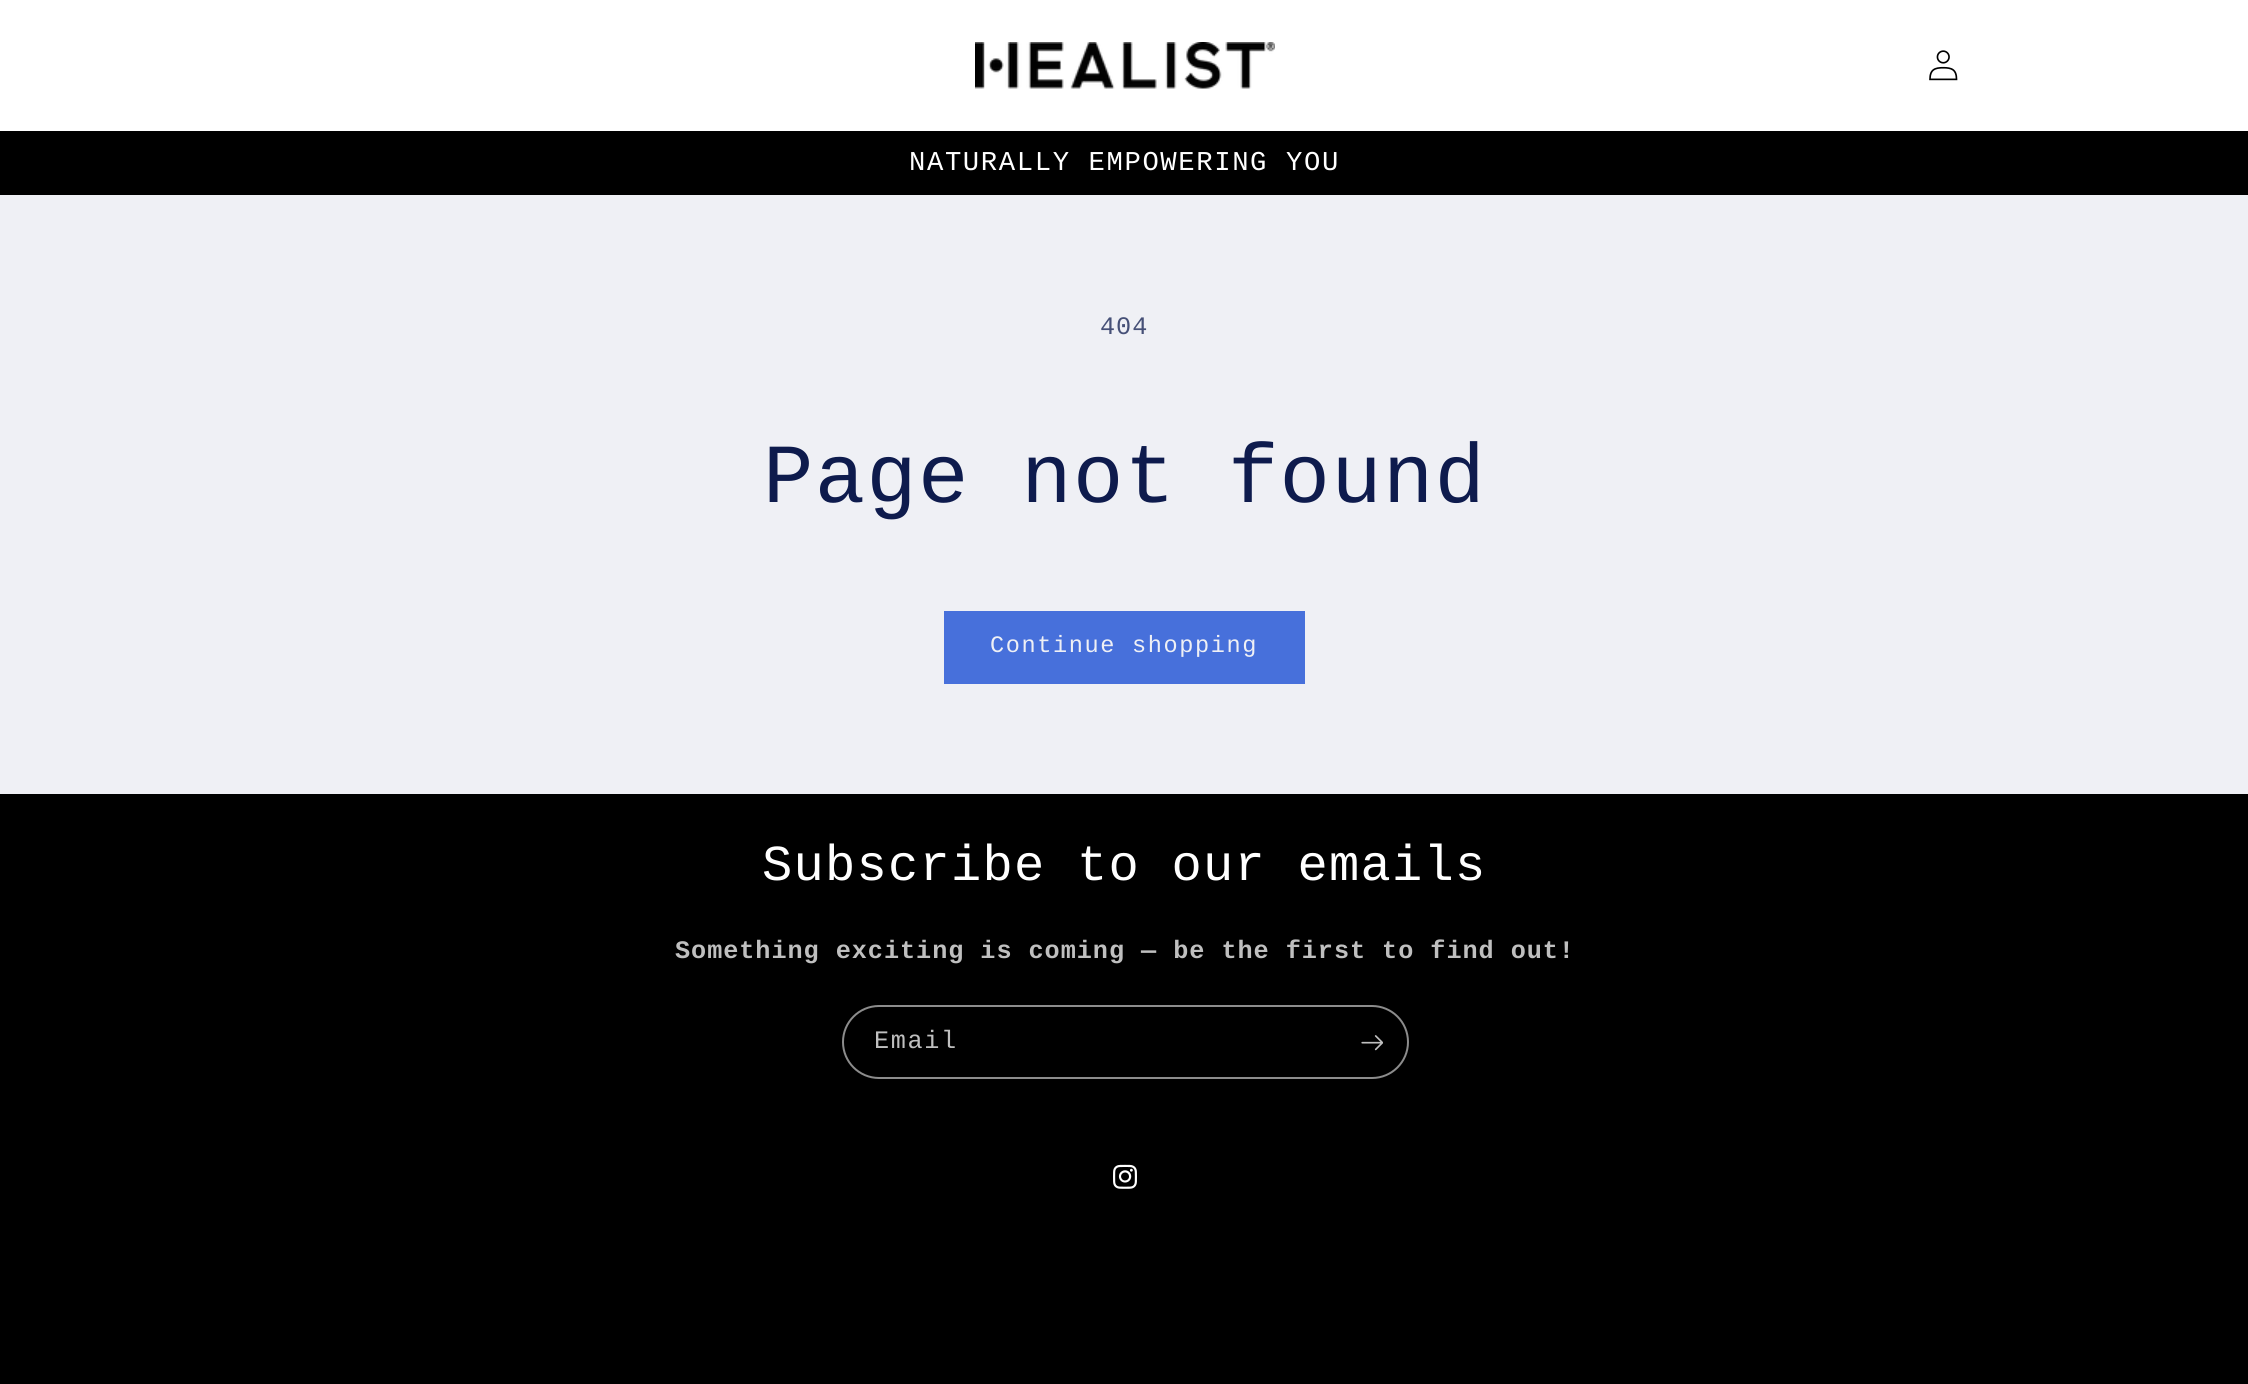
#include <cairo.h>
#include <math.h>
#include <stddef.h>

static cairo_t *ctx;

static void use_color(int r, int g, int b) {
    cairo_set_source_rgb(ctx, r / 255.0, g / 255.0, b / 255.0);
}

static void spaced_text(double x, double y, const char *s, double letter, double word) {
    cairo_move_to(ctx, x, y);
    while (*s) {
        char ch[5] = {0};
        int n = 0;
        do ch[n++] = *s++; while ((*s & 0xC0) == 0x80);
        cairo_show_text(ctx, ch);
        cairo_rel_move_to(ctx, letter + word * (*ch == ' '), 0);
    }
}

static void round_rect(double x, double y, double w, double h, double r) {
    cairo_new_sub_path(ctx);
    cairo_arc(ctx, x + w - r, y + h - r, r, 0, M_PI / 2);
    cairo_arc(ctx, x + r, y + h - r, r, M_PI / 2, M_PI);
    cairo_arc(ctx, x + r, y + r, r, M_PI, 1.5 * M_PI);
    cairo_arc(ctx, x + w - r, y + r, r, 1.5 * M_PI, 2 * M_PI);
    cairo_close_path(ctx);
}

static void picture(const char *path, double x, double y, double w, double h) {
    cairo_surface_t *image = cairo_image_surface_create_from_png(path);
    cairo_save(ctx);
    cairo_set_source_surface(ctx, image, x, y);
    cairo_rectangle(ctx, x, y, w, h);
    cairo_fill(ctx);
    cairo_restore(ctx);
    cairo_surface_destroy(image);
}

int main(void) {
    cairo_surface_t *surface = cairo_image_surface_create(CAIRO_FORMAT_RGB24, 2248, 1384);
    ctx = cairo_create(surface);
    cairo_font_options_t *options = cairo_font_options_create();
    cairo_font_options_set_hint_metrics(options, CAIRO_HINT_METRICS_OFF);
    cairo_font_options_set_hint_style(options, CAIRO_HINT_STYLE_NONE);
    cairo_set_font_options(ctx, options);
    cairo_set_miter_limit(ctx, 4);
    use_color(239, 240, 245);
    cairo_paint(ctx);
    use_color(255, 255, 255);
    cairo_rectangle(ctx, 0, 0, 2248, 131);
    cairo_fill(ctx);
    picture("img1.png", 975, 42, 300, 47);
    picture("img2.png", 1929, 50, 29, 31);
    use_color(0, 0, 0);
    cairo_rectangle(ctx, 0, 131, 2248, 64);
    cairo_fill(ctx);
    cairo_select_font_face(ctx, "Liberation Mono", CAIRO_FONT_SLANT_NORMAL, CAIRO_FONT_WEIGHT_NORMAL);
    cairo_set_font_size(ctx, 27.25);
    use_color(255, 255, 255);
    spaced_text(909, 170, "NATURALLY EMPOWERING YOU", 1.6, 0);
    cairo_set_font_size(ctx, 25.2);
    use_color(70, 80, 119);
    spaced_text(1100, 334, "404", 0.95, 0);
    cairo_set_font_size(ctx, 84);
    use_color(14, 27, 77);
    spaced_text(763, 502, "Page not found", 1.25, 0);
    use_color(71, 112, 219);
    cairo_rectangle(ctx, 944, 611, 361, 73);
    cairo_fill(ctx);
    cairo_set_font_size(ctx, 23.6);
    use_color(239, 240, 245);
    spaced_text(990, 652, "Continue shopping", 1.6, 0);
    use_color(0, 0, 0);
    cairo_rectangle(ctx, 0, 794, 2248, 590);
    cairo_fill(ctx);
    picture("img3.png", 1113, 1164, 24, 25);
    cairo_set_font_size(ctx, 50.4);
    use_color(255, 255, 255);
    spaced_text(762, 880, "Subscribe to our emails", 1.25, 0);
    cairo_select_font_face(ctx, "Liberation Mono", CAIRO_FONT_SLANT_NORMAL, CAIRO_FONT_WEIGHT_BOLD);
    cairo_set_font_size(ctx, 25.2);
    use_color(191, 191, 191);
    spaced_text(675, 958, "Something exciting is coming — be the first to find out!", 0.95, 0);
    round_rect(843, 1006, 565, 72, 36);
    use_color(140, 140, 140);
    cairo_stroke(ctx);
    cairo_select_font_face(ctx, "Liberation Mono", CAIRO_FONT_SLANT_NORMAL, CAIRO_FONT_WEIGHT_NORMAL);
    use_color(191, 191, 191);
    spaced_text(874, 1048, "Email", 1.6, 0);
    picture("img4.png", 1361, 1035, 22, 16);
    cairo_surface_write_to_png(surface, "result.png");
    cairo_font_options_destroy(options);
    cairo_destroy(ctx);
    cairo_surface_destroy(surface);
    return 0;
}
